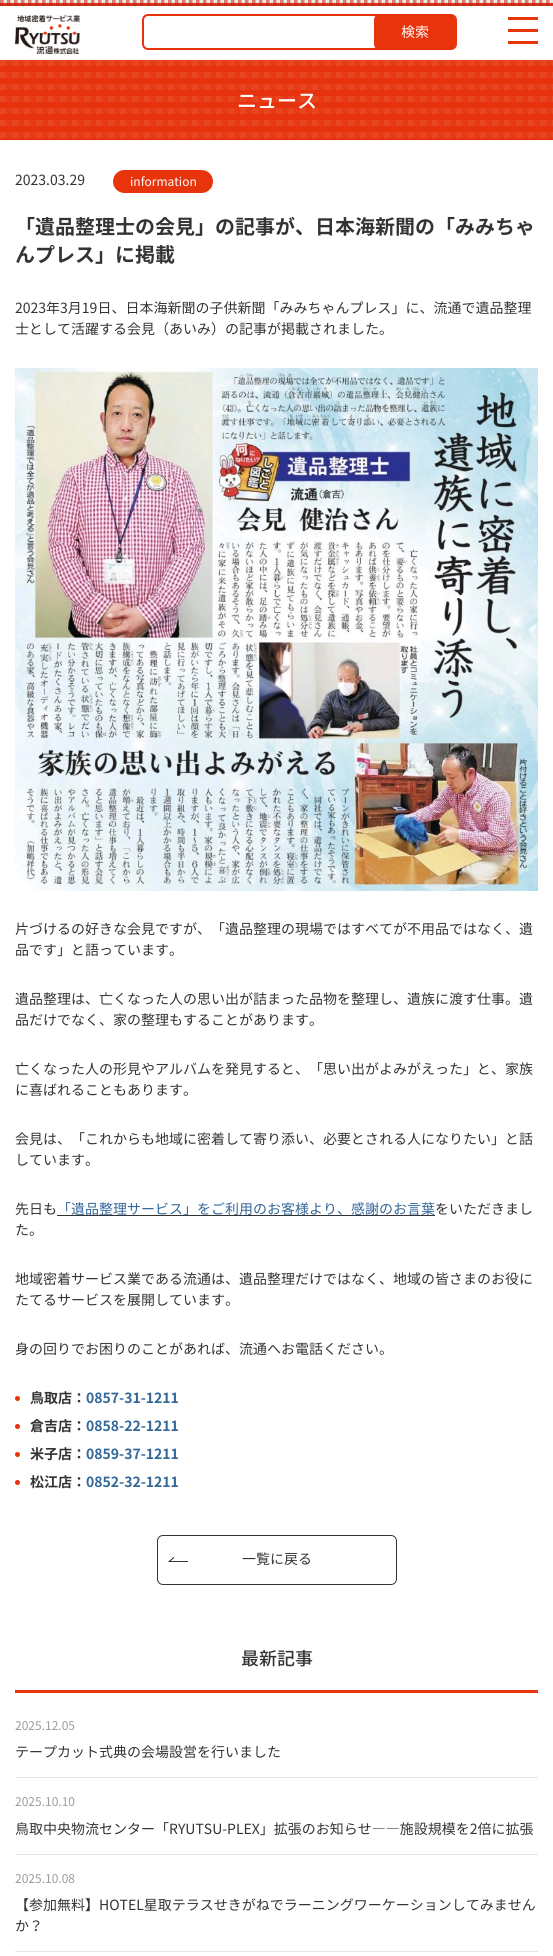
#include <cairo.h>
#include <math.h>
#include <stddef.h>

static cairo_t *ctx;

static void use_color(int r, int g, int b) {
    cairo_set_source_rgb(ctx, r / 255.0, g / 255.0, b / 255.0);
}

static void round_rect(double x, double y, double w, double h, double r) {
    cairo_new_sub_path(ctx);
    cairo_arc(ctx, x + w - r, y + h - r, r, 0, M_PI / 2);
    cairo_arc(ctx, x + r, y + h - r, r, M_PI / 2, M_PI);
    cairo_arc(ctx, x + r, y + r, r, M_PI, 1.5 * M_PI);
    cairo_arc(ctx, x + w - r, y + r, r, 1.5 * M_PI, 2 * M_PI);
    cairo_close_path(ctx);
}

static void picture(const char *path, double x, double y, double w, double h) {
    cairo_surface_t *image = cairo_image_surface_create_from_png(path);
    cairo_save(ctx);
    cairo_set_source_surface(ctx, image, x, y);
    cairo_rectangle(ctx, x, y, w, h);
    cairo_fill(ctx);
    cairo_restore(ctx);
    cairo_surface_destroy(image);
}

int main(void) {
    cairo_surface_t *surface = cairo_image_surface_create(CAIRO_FORMAT_RGB24, 553, 1956);
    ctx = cairo_create(surface);
    cairo_font_options_t *options = cairo_font_options_create();
    cairo_font_options_set_hint_metrics(options, CAIRO_HINT_METRICS_OFF);
    cairo_font_options_set_hint_style(options, CAIRO_HINT_STYLE_NONE);
    cairo_set_font_options(ctx, options);
    cairo_set_miter_limit(ctx, 4);
    use_color(255, 255, 255);
    cairo_paint(ctx);
    picture("img1.png", 0, 0, 553, 6);
    picture("img2.png", 15, 15, 65, 39);
    round_rect(143, 15, 250, 34, 5);
    use_color(232, 52, 12);
    cairo_stroke(ctx);
    round_rect(375, 15, 81, 34, 5);
    cairo_fill_preserve(ctx);
    cairo_stroke(ctx);
    cairo_select_font_face(ctx, "Noto Sans CJK JP", CAIRO_FONT_SLANT_NORMAL, CAIRO_FONT_WEIGHT_NORMAL);
    cairo_set_font_size(ctx, 14);
    use_color(255, 255, 255);
    cairo_move_to(ctx, 401, 37);
    cairo_show_text(ctx, "検索");
    use_color(232, 52, 12);
    cairo_rectangle(ctx, 508, 17, 30, 3);
    cairo_fill(ctx);
    cairo_rectangle(ctx, 508, 29, 30, 3);
    cairo_fill(ctx);
    cairo_rectangle(ctx, 508, 41, 30, 3);
    cairo_fill(ctx);
    picture("img3.png", 0, 60, 553, 80);
    cairo_select_font_face(ctx, "Noto Sans CJK JP Medium", CAIRO_FONT_SLANT_NORMAL, CAIRO_FONT_WEIGHT_NORMAL);
    cairo_set_font_size(ctx, 20);
    use_color(255, 255, 255);
    cairo_move_to(ctx, 237, 108);
    cairo_show_text(ctx, "ニュース");
    cairo_select_font_face(ctx, "Noto Sans CJK JP", CAIRO_FONT_SLANT_NORMAL, CAIRO_FONT_WEIGHT_NORMAL);
    cairo_set_font_size(ctx, 14);
    use_color(51, 51, 51);
    cairo_move_to(ctx, 15, 185);
    cairo_show_text(ctx, "2023.03.29");
    use_color(232, 52, 12);
    round_rect(113, 170, 100, 23, 11.5);
    cairo_fill(ctx);
    cairo_set_font_size(ctx, 12);
    use_color(255, 255, 255);
    cairo_move_to(ctx, 130, 186);
    cairo_show_text(ctx, "information");
    cairo_select_font_face(ctx, "Noto Sans CJK JP", CAIRO_FONT_SLANT_NORMAL, CAIRO_FONT_WEIGHT_BOLD);
    cairo_set_font_size(ctx, 20);
    use_color(51, 51, 51);
    cairo_move_to(ctx, 15, 234);
    cairo_show_text(ctx, "「遺品整理士の会見」の記事が、日本海新聞の「みみちゃ");
    cairo_move_to(ctx, 15, 262);
    cairo_show_text(ctx, "んプレス」に掲載");
    cairo_select_font_face(ctx, "Noto Sans CJK JP", CAIRO_FONT_SLANT_NORMAL, CAIRO_FONT_WEIGHT_NORMAL);
    cairo_set_font_size(ctx, 14);
    cairo_move_to(ctx, 15, 313);
    cairo_show_text(ctx, "2023年3月19日、日本海新聞の子供新聞「みみちゃんプレス」に、流通で遺品整理");
    cairo_move_to(ctx, 15, 334);
    cairo_show_text(ctx, "士として活躍する会見（あいみ）の記事が掲載されました。");
    picture("img4.png", 15, 368, 523, 523);
    cairo_move_to(ctx, 15, 934);
    cairo_show_text(ctx, "片づけるの好きな会見ですが、「遺品整理の現場ではすべてが不用品ではなく、遺");
    cairo_move_to(ctx, 15, 955);
    cairo_show_text(ctx, "品です」と語っています。");
    cairo_move_to(ctx, 15, 1004);
    cairo_show_text(ctx, "遺品整理は、亡くなった人の思い出が詰まった品物を整理し、遺族に渡す仕事。遺");
    cairo_move_to(ctx, 15, 1025);
    cairo_show_text(ctx, "品だけでなく、家の整理もすることがあります。");
    cairo_move_to(ctx, 15, 1074);
    cairo_show_text(ctx, "亡くなった人の形見やアルバムを発見すると、「思い出がよみがえった」と、家族");
    cairo_move_to(ctx, 15, 1095);
    cairo_show_text(ctx, "に喜ばれることもあります。");
    cairo_move_to(ctx, 15, 1144);
    cairo_show_text(ctx, "会見は、「これからも地域に密着して寄り添い、必要とされる人になりたい」と話");
    cairo_move_to(ctx, 15, 1165);
    cairo_show_text(ctx, "しています。");
    cairo_move_to(ctx, 15, 1214);
    cairo_show_text(ctx, "先日も");
    cairo_rectangle(ctx, 57, 1215, 378, 1);
    cairo_fill(ctx);
    use_color(51, 102, 153);
    cairo_move_to(ctx, 57, 1214);
    cairo_show_text(ctx, "「遺品整理サービス」をご利用のお客様より、感謝のお言葉");
    use_color(51, 51, 51);
    cairo_move_to(ctx, 435, 1214);
    cairo_show_text(ctx, "をいただきまし");
    cairo_move_to(ctx, 15, 1235);
    cairo_show_text(ctx, "た。");
    cairo_move_to(ctx, 15, 1284);
    cairo_show_text(ctx, "地域密着サービス業である流通は、遺品整理だけではなく、地域の皆さまのお役に");
    cairo_move_to(ctx, 15, 1305);
    cairo_show_text(ctx, "たてるサービスを展開しています。");
    cairo_move_to(ctx, 15, 1354);
    cairo_show_text(ctx, "身の回りでお困りのことがあれば、流通へお電話ください。");
    use_color(232, 52, 12);
    cairo_new_path(ctx);
    cairo_arc(ctx, 17.5, 1398.5, 2.5, 0, 2 * M_PI);
    cairo_fill(ctx);
    cairo_select_font_face(ctx, "Noto Sans CJK JP", CAIRO_FONT_SLANT_NORMAL, CAIRO_FONT_WEIGHT_BOLD);
    use_color(51, 51, 51);
    cairo_move_to(ctx, 30, 1403);
    cairo_show_text(ctx, "鳥取店：");
    use_color(51, 102, 153);
    cairo_move_to(ctx, 86, 1403);
    cairo_show_text(ctx, "0857-31-1211");
    use_color(232, 52, 12);
    cairo_new_path(ctx);
    cairo_arc(ctx, 17.5, 1426.5, 2.5, 0, 2 * M_PI);
    cairo_fill(ctx);
    use_color(51, 51, 51);
    cairo_move_to(ctx, 30, 1431);
    cairo_show_text(ctx, "倉吉店：");
    use_color(51, 102, 153);
    cairo_move_to(ctx, 86, 1431);
    cairo_show_text(ctx, "0858-22-1211");
    use_color(232, 52, 12);
    cairo_new_path(ctx);
    cairo_arc(ctx, 17.5, 1454.5, 2.5, 0, 2 * M_PI);
    cairo_fill(ctx);
    use_color(51, 51, 51);
    cairo_move_to(ctx, 30, 1459);
    cairo_show_text(ctx, "米子店：");
    use_color(51, 102, 153);
    cairo_move_to(ctx, 86, 1459);
    cairo_show_text(ctx, "0859-37-1211");
    use_color(232, 52, 12);
    cairo_new_path(ctx);
    cairo_arc(ctx, 17.5, 1482.5, 2.5, 0, 2 * M_PI);
    cairo_fill(ctx);
    use_color(51, 51, 51);
    cairo_move_to(ctx, 30, 1487);
    cairo_show_text(ctx, "松江店：");
    use_color(51, 102, 153);
    cairo_move_to(ctx, 86, 1487);
    cairo_show_text(ctx, "0852-32-1211");
    round_rect(157.5, 1535.5, 239, 49, 5.5);
    use_color(51, 51, 51);
    cairo_set_line_width(ctx, 1);
    cairo_stroke(ctx);
    picture("img5.png", 168, 1557, 20, 5);
    cairo_select_font_face(ctx, "Noto Sans CJK JP", CAIRO_FONT_SLANT_NORMAL, CAIRO_FONT_WEIGHT_NORMAL);
    cairo_move_to(ctx, 242, 1564);
    cairo_show_text(ctx, "一覧に戻る");
    use_color(232, 52, 12);
    cairo_rectangle(ctx, 15, 1690, 523, 3);
    cairo_fill(ctx);
    cairo_select_font_face(ctx, "Noto Sans CJK JP Medium", CAIRO_FONT_SLANT_NORMAL, CAIRO_FONT_WEIGHT_NORMAL);
    cairo_set_font_size(ctx, 18);
    use_color(51, 51, 51);
    cairo_move_to(ctx, 241, 1665);
    cairo_show_text(ctx, "最新記事");
    use_color(230, 230, 230);
    cairo_rectangle(ctx, 15, 1777, 523, 1);
    cairo_fill(ctx);
    cairo_select_font_face(ctx, "Noto Sans CJK JP", CAIRO_FONT_SLANT_NORMAL, CAIRO_FONT_WEIGHT_NORMAL);
    cairo_set_font_size(ctx, 12);
    use_color(156, 156, 156);
    cairo_move_to(ctx, 15, 1730);
    cairo_show_text(ctx, "2025.12.05");
    cairo_set_font_size(ctx, 14);
    use_color(51, 51, 51);
    cairo_move_to(ctx, 15, 1757);
    cairo_show_text(ctx, "テープカット式典の会場設営を行いました");
    use_color(230, 230, 230);
    cairo_rectangle(ctx, 15, 1854, 523, 1);
    cairo_fill(ctx);
    cairo_set_font_size(ctx, 12);
    use_color(156, 156, 156);
    cairo_move_to(ctx, 15, 1806);
    cairo_show_text(ctx, "2025.10.10");
    cairo_set_font_size(ctx, 14);
    use_color(51, 51, 51);
    cairo_move_to(ctx, 15, 1834);
    cairo_show_text(ctx, "鳥取中央物流センター「RYUTSU-PLEX」拡張のお知らせ――施設規模を2倍に拡張");
    use_color(230, 230, 230);
    cairo_rectangle(ctx, 15, 1951, 523, 1);
    cairo_fill(ctx);
    cairo_set_font_size(ctx, 12);
    use_color(156, 156, 156);
    cairo_move_to(ctx, 15, 1883);
    cairo_show_text(ctx, "2025.10.08");
    cairo_set_font_size(ctx, 14);
    use_color(51, 51, 51);
    cairo_move_to(ctx, 15, 1910);
    cairo_show_text(ctx, "【参加無料】HOTEL星取テラスせきがねでラーニングワーケーションしてみません");
    cairo_move_to(ctx, 15, 1931);
    cairo_show_text(ctx, "か？");
    cairo_surface_write_to_png(surface, "result.png");
    cairo_font_options_destroy(options);
    cairo_destroy(ctx);
    cairo_surface_destroy(surface);
    return 0;
}
